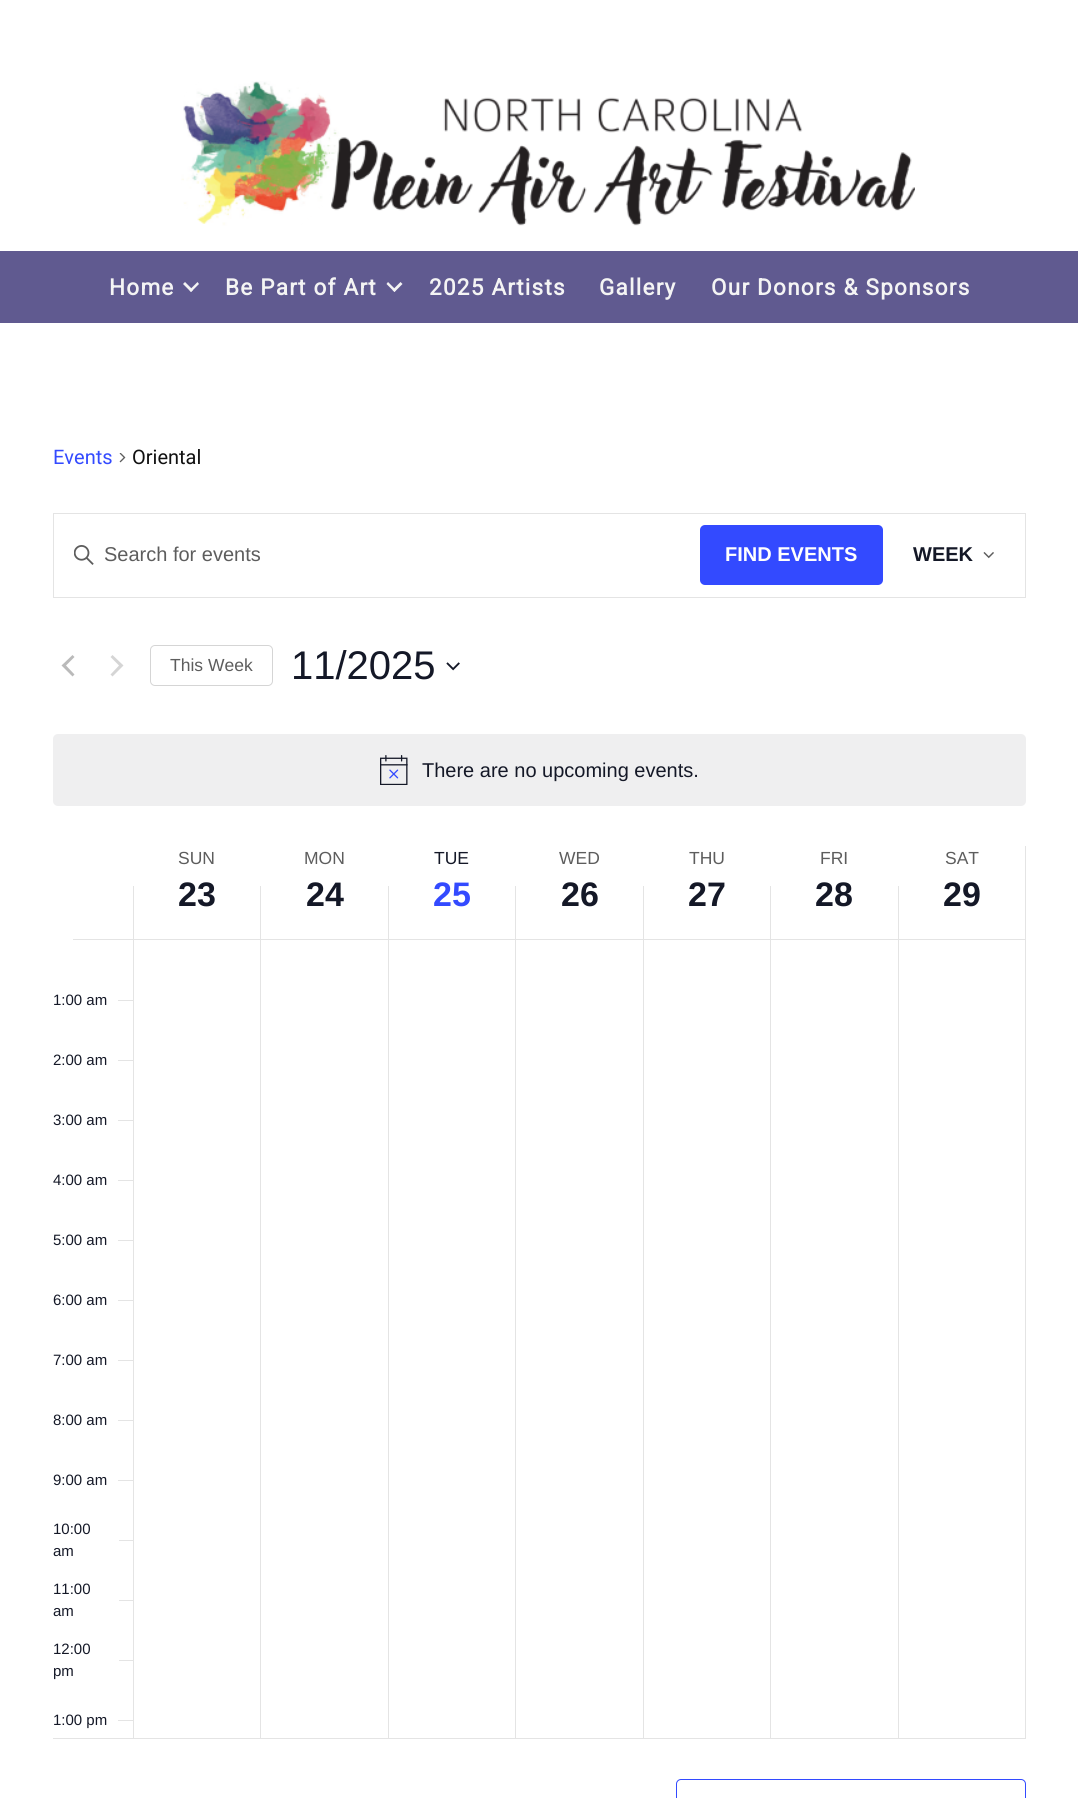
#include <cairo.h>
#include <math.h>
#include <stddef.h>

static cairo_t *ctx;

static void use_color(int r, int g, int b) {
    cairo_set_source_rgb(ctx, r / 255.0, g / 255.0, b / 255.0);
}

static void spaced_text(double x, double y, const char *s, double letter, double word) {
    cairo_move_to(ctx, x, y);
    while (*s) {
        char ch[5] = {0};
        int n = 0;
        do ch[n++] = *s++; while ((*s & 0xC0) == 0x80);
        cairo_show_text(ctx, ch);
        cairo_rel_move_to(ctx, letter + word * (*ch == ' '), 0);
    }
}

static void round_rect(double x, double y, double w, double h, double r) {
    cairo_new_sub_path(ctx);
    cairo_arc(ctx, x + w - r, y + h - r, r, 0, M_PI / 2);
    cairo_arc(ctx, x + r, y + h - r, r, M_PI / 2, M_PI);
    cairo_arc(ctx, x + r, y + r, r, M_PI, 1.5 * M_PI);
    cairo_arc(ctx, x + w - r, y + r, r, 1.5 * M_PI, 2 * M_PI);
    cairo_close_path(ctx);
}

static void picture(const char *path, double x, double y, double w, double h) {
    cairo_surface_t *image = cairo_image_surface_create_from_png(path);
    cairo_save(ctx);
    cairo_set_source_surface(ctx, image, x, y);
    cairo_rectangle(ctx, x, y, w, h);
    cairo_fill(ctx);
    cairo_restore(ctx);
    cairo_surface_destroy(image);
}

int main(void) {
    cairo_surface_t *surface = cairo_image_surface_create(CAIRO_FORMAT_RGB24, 1078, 1798);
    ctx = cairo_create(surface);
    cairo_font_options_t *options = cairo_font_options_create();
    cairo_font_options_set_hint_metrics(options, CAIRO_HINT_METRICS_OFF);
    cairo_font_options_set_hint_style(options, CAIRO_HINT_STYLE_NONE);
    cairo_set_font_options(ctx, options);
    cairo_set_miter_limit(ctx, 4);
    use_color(255, 255, 255);
    cairo_paint(ctx);
    picture("img1.png", 181, 81, 734, 145);
    use_color(96, 90, 144);
    cairo_rectangle(ctx, 0, 251, 1078, 72);
    cairo_fill(ctx);
    cairo_select_font_face(ctx, "Roboto", CAIRO_FONT_SLANT_NORMAL, CAIRO_FONT_WEIGHT_BOLD);
    cairo_set_font_size(ctx, 22.5);
    use_color(244, 244, 244);
    spaced_text(109, 295, "Home", 1.25, 0);
    cairo_new_path(ctx);
    cairo_move_to(ctx, 197.5, 282);
    cairo_line_to(ctx, 199, 284);
    cairo_line_to(ctx, 191, 292);
    cairo_line_to(ctx, 189.5, 290);
    cairo_close_path(ctx);
    cairo_fill(ctx);
    cairo_new_path(ctx);
    cairo_move_to(ctx, 185, 282);
    cairo_line_to(ctx, 193, 290);
    cairo_line_to(ctx, 191, 292);
    cairo_line_to(ctx, 183, 284);
    cairo_close_path(ctx);
    cairo_fill(ctx);
    spaced_text(225, 295, "Be Part of Art", 1.25, 0);
    cairo_new_path(ctx);
    cairo_move_to(ctx, 400.5, 282);
    cairo_line_to(ctx, 402.5, 284);
    cairo_line_to(ctx, 394.5, 292);
    cairo_line_to(ctx, 392.5, 290);
    cairo_close_path(ctx);
    cairo_fill(ctx);
    cairo_new_path(ctx);
    cairo_move_to(ctx, 388, 282);
    cairo_line_to(ctx, 396, 290);
    cairo_line_to(ctx, 394.5, 292);
    cairo_line_to(ctx, 386.5, 284);
    cairo_close_path(ctx);
    cairo_fill(ctx);
    spaced_text(429, 295, "2025 Artists", 1.25, 0);
    spaced_text(599, 295, "Gallery", 1.25, 0);
    spaced_text(711, 295, "Our Donors & Sponsors", 1.25, 0);
    cairo_select_font_face(ctx, "Roboto", CAIRO_FONT_SLANT_NORMAL, CAIRO_FONT_WEIGHT_NORMAL);
    cairo_set_font_size(ctx, 20);
    use_color(51, 74, 255);
    cairo_move_to(ctx, 53, 464);
    cairo_show_text(ctx, "Events");
    picture("img2.png", 119, 453, 7, 10);
    use_color(17, 17, 17);
    cairo_move_to(ctx, 132, 464);
    cairo_show_text(ctx, "Oriental");
    cairo_rectangle(ctx, 53.5, 513.5, 972, 84);
    use_color(228, 228, 228);
    cairo_set_line_width(ctx, 1);
    cairo_stroke(ctx);
    picture("img3.png", 74, 545, 20, 20);
    cairo_select_font_face(ctx, "Liberation Sans", CAIRO_FONT_SLANT_NORMAL, CAIRO_FONT_WEIGHT_NORMAL);
    use_color(93, 93, 93);
    cairo_move_to(ctx, 104, 561);
    cairo_show_text(ctx, "Search for events");
    use_color(51, 74, 255);
    round_rect(700, 525, 183, 60, 5);
    cairo_fill(ctx);
    cairo_select_font_face(ctx, "Liberation Sans", CAIRO_FONT_SLANT_NORMAL, CAIRO_FONT_WEIGHT_BOLD);
    use_color(255, 255, 255);
    cairo_move_to(ctx, 725, 561);
    cairo_show_text(ctx, "FIND EVENTS");
    use_color(20, 24, 39);
    cairo_move_to(ctx, 913, 561);
    cairo_show_text(ctx, "WEEK");
    picture("img4.png", 983, 552, 11, 7);
    use_color(186, 186, 186);
    cairo_new_path(ctx);
    cairo_move_to(ctx, 74.5, 674.5);
    cairo_line_to(ctx, 72.5, 676.5);
    cairo_line_to(ctx, 61.5, 665.5);
    cairo_line_to(ctx, 72.5, 655);
    cairo_line_to(ctx, 74.5, 657);
    cairo_line_to(ctx, 66, 665.5);
    cairo_close_path(ctx);
    cairo_fill(ctx);
    use_color(213, 213, 213);
    cairo_new_path(ctx);
    cairo_move_to(ctx, 110.5, 657);
    cairo_line_to(ctx, 112.5, 655);
    cairo_line_to(ctx, 123.5, 665.5);
    cairo_line_to(ctx, 112.5, 676.5);
    cairo_line_to(ctx, 110.5, 674.5);
    cairo_line_to(ctx, 119, 665.5);
    cairo_close_path(ctx);
    cairo_fill(ctx);
    round_rect(150.5, 645.5, 122, 40, 4.5);
    cairo_stroke(ctx);
    cairo_select_font_face(ctx, "Liberation Sans", CAIRO_FONT_SLANT_NORMAL, CAIRO_FONT_WEIGHT_NORMAL);
    cairo_set_font_size(ctx, 17.5);
    use_color(93, 93, 93);
    cairo_move_to(ctx, 170, 671);
    cairo_show_text(ctx, "This Week");
    cairo_set_font_size(ctx, 40);
    use_color(20, 24, 39);
    cairo_move_to(ctx, 291, 679);
    cairo_show_text(ctx, "11/2025");
    picture("img5.png", 446, 662, 14, 9);
    use_color(239, 239, 240);
    round_rect(53, 734, 973, 72, 5);
    cairo_fill(ctx);
    picture("img6.png", 380, 755, 28, 30);
    cairo_set_font_size(ctx, 20);
    use_color(20, 24, 39);
    cairo_move_to(ctx, 422, 777);
    cairo_show_text(ctx, "There are no upcoming events.");
    use_color(228, 228, 228);
    cairo_rectangle(ctx, 1025, 846, 1, 893);
    cairo_fill(ctx);
    cairo_rectangle(ctx, 73, 939, 952, 1);
    cairo_fill(ctx);
    cairo_rectangle(ctx, 133, 886, 1, 852);
    cairo_fill(ctx);
    cairo_set_font_size(ctx, 17.5);
    use_color(93, 93, 93);
    cairo_move_to(ctx, 178, 864);
    cairo_show_text(ctx, "SUN");
    cairo_select_font_face(ctx, "Liberation Sans", CAIRO_FONT_SLANT_NORMAL, CAIRO_FONT_WEIGHT_BOLD);
    cairo_set_font_size(ctx, 34);
    use_color(20, 24, 39);
    cairo_move_to(ctx, 178, 906);
    cairo_show_text(ctx, "23");
    use_color(228, 228, 228);
    cairo_rectangle(ctx, 260, 886, 1, 852);
    cairo_fill(ctx);
    cairo_select_font_face(ctx, "Liberation Sans", CAIRO_FONT_SLANT_NORMAL, CAIRO_FONT_WEIGHT_NORMAL);
    cairo_set_font_size(ctx, 17.5);
    use_color(93, 93, 93);
    cairo_move_to(ctx, 304, 864);
    cairo_show_text(ctx, "MON");
    cairo_select_font_face(ctx, "Liberation Sans", CAIRO_FONT_SLANT_NORMAL, CAIRO_FONT_WEIGHT_BOLD);
    cairo_set_font_size(ctx, 34);
    use_color(20, 24, 39);
    cairo_move_to(ctx, 306, 906);
    cairo_show_text(ctx, "24");
    use_color(228, 228, 228);
    cairo_rectangle(ctx, 388, 886, 1, 852);
    cairo_fill(ctx);
    cairo_select_font_face(ctx, "Liberation Sans", CAIRO_FONT_SLANT_NORMAL, CAIRO_FONT_WEIGHT_NORMAL);
    cairo_set_font_size(ctx, 17.5);
    use_color(20, 24, 39);
    cairo_move_to(ctx, 434, 864);
    cairo_show_text(ctx, "TUE");
    cairo_select_font_face(ctx, "Liberation Sans", CAIRO_FONT_SLANT_NORMAL, CAIRO_FONT_WEIGHT_BOLD);
    cairo_set_font_size(ctx, 34);
    use_color(51, 74, 255);
    cairo_move_to(ctx, 433, 906);
    cairo_show_text(ctx, "25");
    use_color(228, 228, 228);
    cairo_rectangle(ctx, 515, 886, 1, 852);
    cairo_fill(ctx);
    cairo_select_font_face(ctx, "Liberation Sans", CAIRO_FONT_SLANT_NORMAL, CAIRO_FONT_WEIGHT_NORMAL);
    cairo_set_font_size(ctx, 17.5);
    use_color(93, 93, 93);
    cairo_move_to(ctx, 559, 864);
    cairo_show_text(ctx, "WED");
    cairo_select_font_face(ctx, "Liberation Sans", CAIRO_FONT_SLANT_NORMAL, CAIRO_FONT_WEIGHT_BOLD);
    cairo_set_font_size(ctx, 34);
    use_color(20, 24, 39);
    cairo_move_to(ctx, 561, 906);
    cairo_show_text(ctx, "26");
    use_color(228, 228, 228);
    cairo_rectangle(ctx, 643, 886, 1, 852);
    cairo_fill(ctx);
    cairo_select_font_face(ctx, "Liberation Sans", CAIRO_FONT_SLANT_NORMAL, CAIRO_FONT_WEIGHT_NORMAL);
    cairo_set_font_size(ctx, 17.5);
    use_color(93, 93, 93);
    cairo_move_to(ctx, 689, 864);
    cairo_show_text(ctx, "THU");
    cairo_select_font_face(ctx, "Liberation Sans", CAIRO_FONT_SLANT_NORMAL, CAIRO_FONT_WEIGHT_BOLD);
    cairo_set_font_size(ctx, 34);
    use_color(20, 24, 39);
    cairo_move_to(ctx, 688, 906);
    cairo_show_text(ctx, "27");
    use_color(228, 228, 228);
    cairo_rectangle(ctx, 770, 886, 1, 852);
    cairo_fill(ctx);
    cairo_select_font_face(ctx, "Liberation Sans", CAIRO_FONT_SLANT_NORMAL, CAIRO_FONT_WEIGHT_NORMAL);
    cairo_set_font_size(ctx, 17.5);
    use_color(93, 93, 93);
    cairo_move_to(ctx, 820, 864);
    cairo_show_text(ctx, "FRI");
    cairo_select_font_face(ctx, "Liberation Sans", CAIRO_FONT_SLANT_NORMAL, CAIRO_FONT_WEIGHT_BOLD);
    cairo_set_font_size(ctx, 34);
    use_color(20, 24, 39);
    cairo_move_to(ctx, 815, 906);
    cairo_show_text(ctx, "28");
    use_color(228, 228, 228);
    cairo_rectangle(ctx, 898, 886, 1, 852);
    cairo_fill(ctx);
    cairo_select_font_face(ctx, "Liberation Sans", CAIRO_FONT_SLANT_NORMAL, CAIRO_FONT_WEIGHT_NORMAL);
    cairo_set_font_size(ctx, 17.5);
    use_color(93, 93, 93);
    cairo_move_to(ctx, 945, 864);
    cairo_show_text(ctx, "SAT");
    cairo_select_font_face(ctx, "Liberation Sans", CAIRO_FONT_SLANT_NORMAL, CAIRO_FONT_WEIGHT_BOLD);
    cairo_set_font_size(ctx, 34);
    use_color(20, 24, 39);
    cairo_move_to(ctx, 943, 906);
    cairo_show_text(ctx, "29");
    use_color(228, 228, 228);
    cairo_rectangle(ctx, 53, 1738, 972, 1);
    cairo_fill(ctx);
    cairo_select_font_face(ctx, "Liberation Sans", CAIRO_FONT_SLANT_NORMAL, CAIRO_FONT_WEIGHT_NORMAL);
    cairo_set_font_size(ctx, 15);
    use_color(20, 24, 39);
    cairo_move_to(ctx, 53, 1005);
    cairo_show_text(ctx, "1:00 am");
    use_color(228, 228, 228);
    cairo_rectangle(ctx, 118, 1000, 15, 1);
    cairo_fill(ctx);
    use_color(20, 24, 39);
    cairo_move_to(ctx, 53, 1065);
    cairo_show_text(ctx, "2:00 am");
    use_color(228, 228, 228);
    cairo_rectangle(ctx, 118, 1060, 15, 1);
    cairo_fill(ctx);
    use_color(20, 24, 39);
    cairo_move_to(ctx, 53, 1125);
    cairo_show_text(ctx, "3:00 am");
    use_color(228, 228, 228);
    cairo_rectangle(ctx, 118, 1120, 15, 1);
    cairo_fill(ctx);
    use_color(20, 24, 39);
    cairo_move_to(ctx, 53, 1185);
    cairo_show_text(ctx, "4:00 am");
    use_color(228, 228, 228);
    cairo_rectangle(ctx, 118, 1180, 15, 1);
    cairo_fill(ctx);
    use_color(20, 24, 39);
    cairo_move_to(ctx, 53, 1245);
    cairo_show_text(ctx, "5:00 am");
    use_color(228, 228, 228);
    cairo_rectangle(ctx, 118, 1240, 15, 1);
    cairo_fill(ctx);
    use_color(20, 24, 39);
    cairo_move_to(ctx, 53, 1305);
    cairo_show_text(ctx, "6:00 am");
    use_color(228, 228, 228);
    cairo_rectangle(ctx, 118, 1300, 15, 1);
    cairo_fill(ctx);
    use_color(20, 24, 39);
    cairo_move_to(ctx, 53, 1365);
    cairo_show_text(ctx, "7:00 am");
    use_color(228, 228, 228);
    cairo_rectangle(ctx, 118, 1360, 15, 1);
    cairo_fill(ctx);
    use_color(20, 24, 39);
    cairo_move_to(ctx, 53, 1425);
    cairo_show_text(ctx, "8:00 am");
    use_color(228, 228, 228);
    cairo_rectangle(ctx, 118, 1420, 15, 1);
    cairo_fill(ctx);
    use_color(20, 24, 39);
    cairo_move_to(ctx, 53, 1485);
    cairo_show_text(ctx, "9:00 am");
    use_color(228, 228, 228);
    cairo_rectangle(ctx, 118, 1480, 15, 1);
    cairo_fill(ctx);
    use_color(20, 24, 39);
    cairo_move_to(ctx, 53, 1534);
    cairo_show_text(ctx, "10:00");
    use_color(228, 228, 228);
    cairo_rectangle(ctx, 119, 1540, 14, 1);
    cairo_fill(ctx);
    use_color(20, 24, 39);
    cairo_move_to(ctx, 53, 1556);
    cairo_show_text(ctx, "am");
    cairo_move_to(ctx, 53, 1594);
    cairo_show_text(ctx, "11:00");
    use_color(228, 228, 228);
    cairo_rectangle(ctx, 119, 1600, 14, 1);
    cairo_fill(ctx);
    use_color(20, 24, 39);
    cairo_move_to(ctx, 53, 1616);
    cairo_show_text(ctx, "am");
    cairo_move_to(ctx, 53, 1654);
    cairo_show_text(ctx, "12:00");
    use_color(228, 228, 228);
    cairo_rectangle(ctx, 119, 1660, 14, 1);
    cairo_fill(ctx);
    use_color(20, 24, 39);
    cairo_move_to(ctx, 53, 1676);
    cairo_show_text(ctx, "pm");
    cairo_move_to(ctx, 53, 1725);
    cairo_show_text(ctx, "1:00 pm");
    use_color(228, 228, 228);
    cairo_rectangle(ctx, 118, 1720, 15, 1);
    cairo_fill(ctx);
    round_rect(676.5, 1779.5, 349, 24, 4.5);
    use_color(51, 74, 255);
    cairo_stroke(ctx);
    cairo_surface_write_to_png(surface, "result.png");
    cairo_font_options_destroy(options);
    cairo_destroy(ctx);
    cairo_surface_destroy(surface);
    return 0;
}
